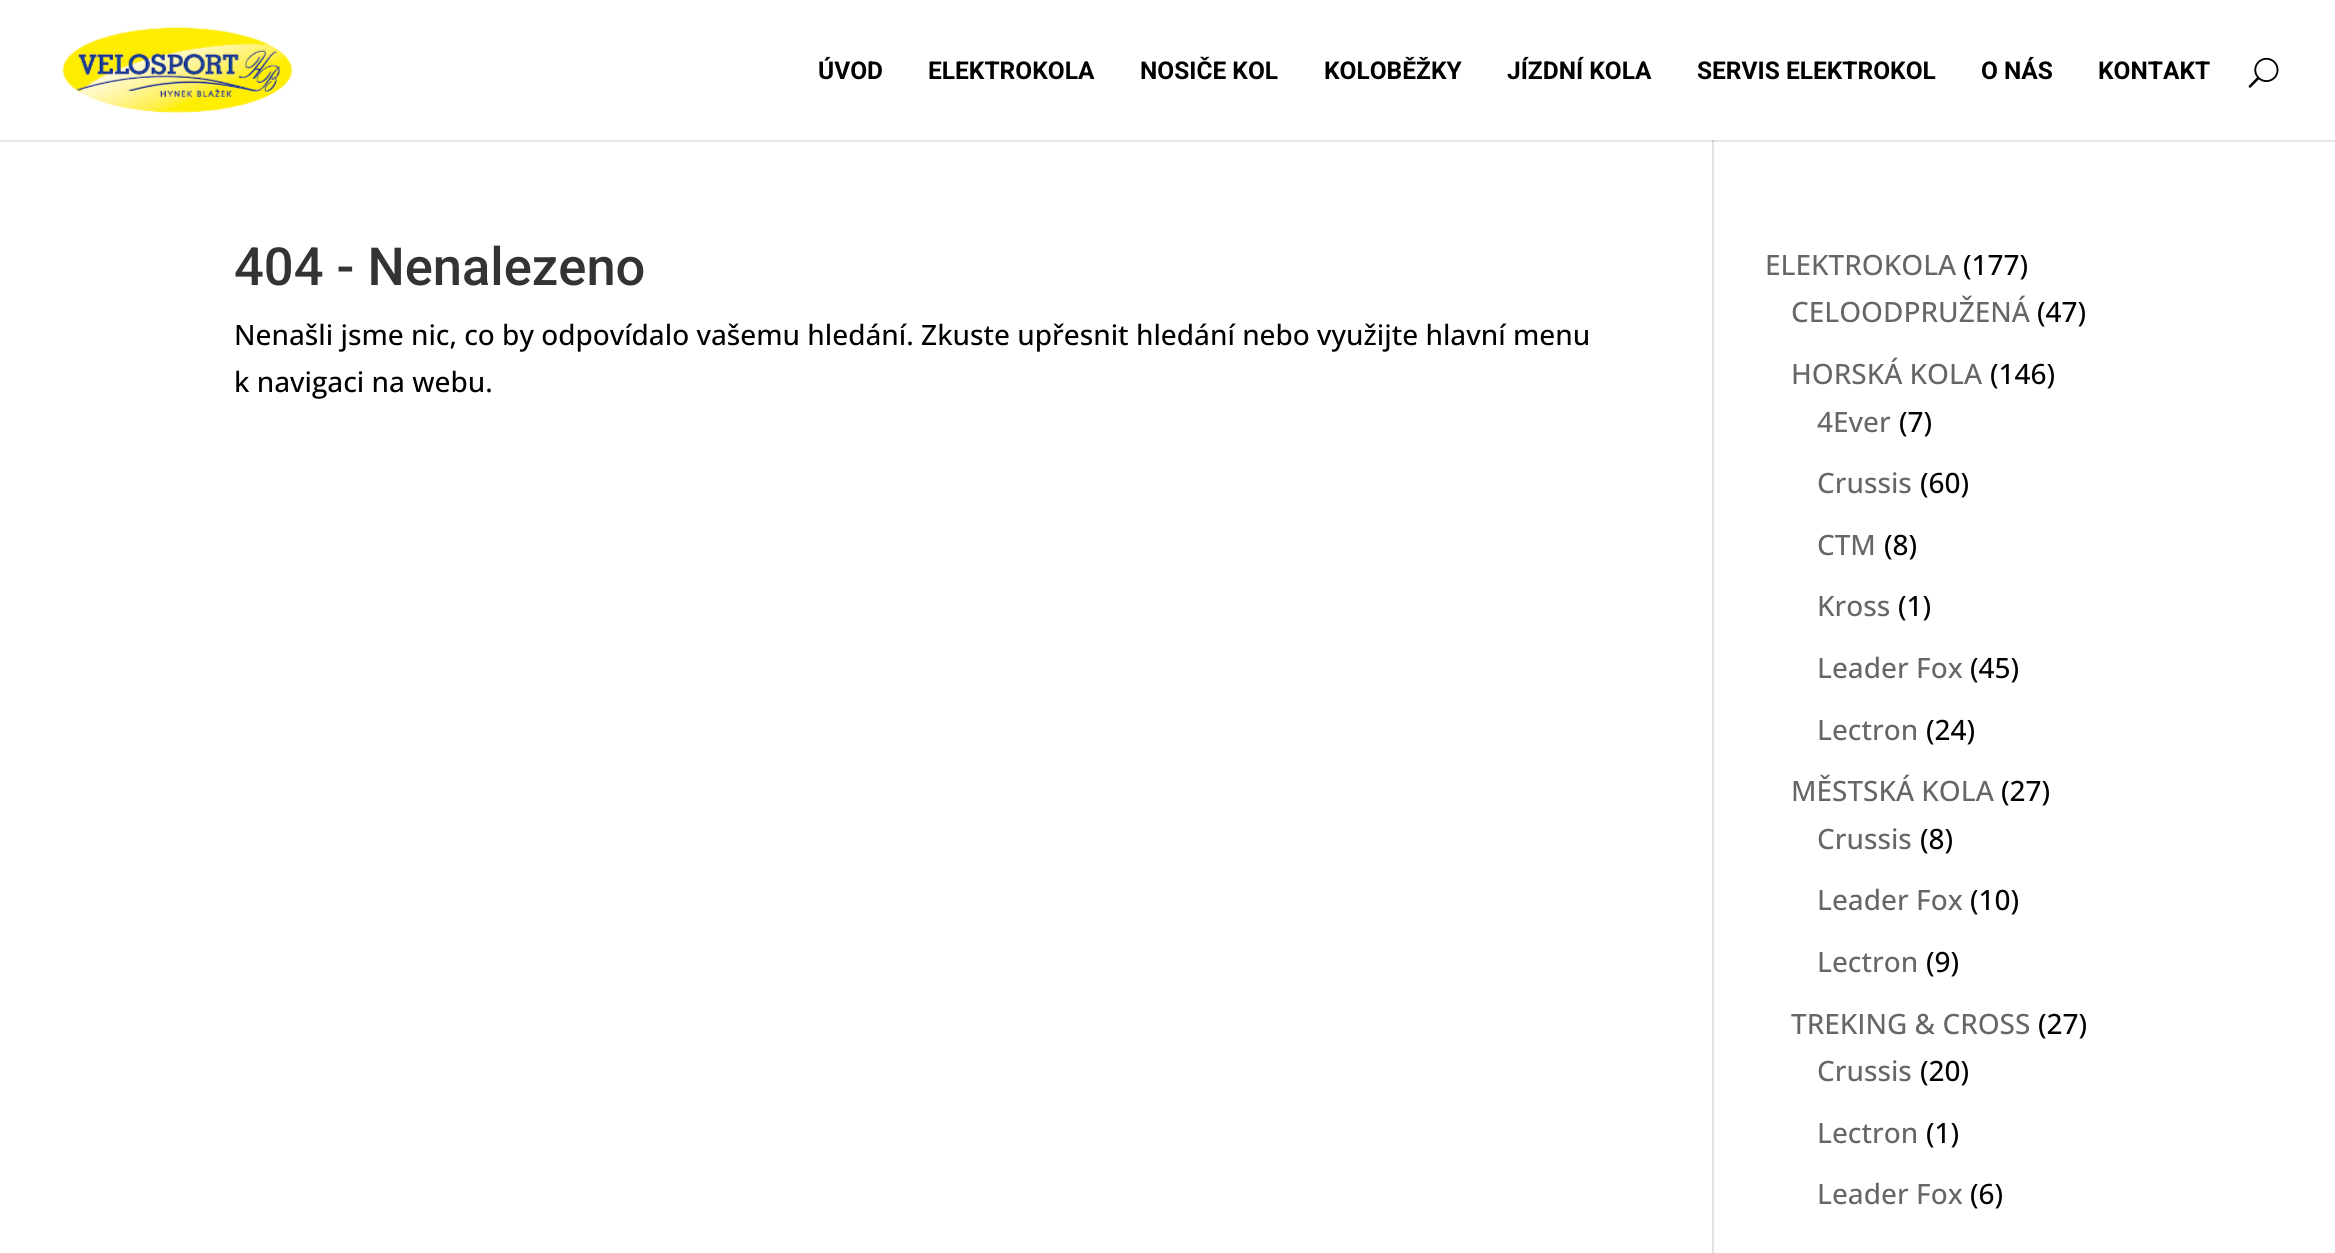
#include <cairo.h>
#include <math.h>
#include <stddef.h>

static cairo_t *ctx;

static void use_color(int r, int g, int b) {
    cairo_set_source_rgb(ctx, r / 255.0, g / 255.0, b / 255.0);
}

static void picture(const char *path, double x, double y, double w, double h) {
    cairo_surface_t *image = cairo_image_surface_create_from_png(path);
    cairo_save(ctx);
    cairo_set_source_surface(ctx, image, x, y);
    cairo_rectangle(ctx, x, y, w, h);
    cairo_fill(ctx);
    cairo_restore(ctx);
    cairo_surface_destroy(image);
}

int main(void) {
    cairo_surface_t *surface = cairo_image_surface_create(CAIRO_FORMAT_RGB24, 2335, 1253);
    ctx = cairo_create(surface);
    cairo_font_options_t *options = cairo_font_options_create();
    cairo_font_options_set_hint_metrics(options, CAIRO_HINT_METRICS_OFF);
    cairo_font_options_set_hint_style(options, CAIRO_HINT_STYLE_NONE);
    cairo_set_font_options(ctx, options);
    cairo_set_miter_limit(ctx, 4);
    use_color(255, 255, 255);
    cairo_paint(ctx);
    use_color(230, 230, 230);
    cairo_rectangle(ctx, 0, 140, 2335, 2);
    cairo_fill(ctx);
    picture("img1.png", 62, 26, 231, 87);
    cairo_select_font_face(ctx, "Roboto", CAIRO_FONT_SLANT_NORMAL, CAIRO_FONT_WEIGHT_BOLD);
    cairo_set_font_size(ctx, 24.5);
    use_color(0, 0, 0);
    cairo_move_to(ctx, 818, 79);
    cairo_show_text(ctx, "ÚVOD");
    cairo_move_to(ctx, 928, 79);
    cairo_show_text(ctx, "ELEKTROKOLA");
    cairo_move_to(ctx, 1140, 79);
    cairo_show_text(ctx, "NOSIČE KOL");
    cairo_move_to(ctx, 1324, 79);
    cairo_show_text(ctx, "KOLOBĚŽKY");
    cairo_move_to(ctx, 1507, 79);
    cairo_show_text(ctx, "JÍZDNÍ KOLA");
    cairo_move_to(ctx, 1697, 79);
    cairo_show_text(ctx, "SERVIS ELEKTROKOL");
    cairo_move_to(ctx, 1981, 79);
    cairo_show_text(ctx, "O NÁS");
    cairo_move_to(ctx, 2098, 79);
    cairo_show_text(ctx, "KONTAKT");
    picture("img2.png", 2248, 57, 31, 31);
    use_color(226, 226, 226);
    cairo_rectangle(ctx, 1712, 140, 2, 1113);
    cairo_fill(ctx);
    use_color(203, 203, 203);
    cairo_rectangle(ctx, 1712, 140, 2, 2);
    cairo_fill(ctx);
    cairo_select_font_face(ctx, "Roboto Medium", CAIRO_FONT_SLANT_NORMAL, CAIRO_FONT_WEIGHT_NORMAL);
    cairo_set_font_size(ctx, 52.5);
    use_color(51, 51, 51);
    cairo_move_to(ctx, 234, 285);
    cairo_show_text(ctx, "404 - Nenalezeno");
    cairo_select_font_face(ctx, "Open Sans Medium", CAIRO_FONT_SLANT_NORMAL, CAIRO_FONT_WEIGHT_NORMAL);
    cairo_set_font_size(ctx, 28);
    use_color(0, 0, 0);
    cairo_move_to(ctx, 234, 345);
    cairo_show_text(ctx, "Nenašli jsme nic, co by odpovídalo vašemu hledání. Zkuste upřesnit hledání nebo využijte hlavní menu");
    cairo_move_to(ctx, 234, 392);
    cairo_show_text(ctx, "k navigaci na webu.");
    use_color(102, 102, 102);
    cairo_move_to(ctx, 1765, 275);
    cairo_show_text(ctx, "ELEKTROKOLA");
    use_color(0, 0, 0);
    cairo_move_to(ctx, 1963, 275);
    cairo_show_text(ctx, "(177)");
    use_color(102, 102, 102);
    cairo_move_to(ctx, 1791, 322);
    cairo_show_text(ctx, "CELOODPRUŽENÁ");
    use_color(0, 0, 0);
    cairo_move_to(ctx, 2037, 322);
    cairo_show_text(ctx, "(47)");
    use_color(102, 102, 102);
    cairo_move_to(ctx, 1791, 384);
    cairo_show_text(ctx, "HORSKÁ KOLA");
    use_color(0, 0, 0);
    cairo_move_to(ctx, 1990, 384);
    cairo_show_text(ctx, "(146)");
    use_color(102, 102, 102);
    cairo_move_to(ctx, 1817, 432);
    cairo_show_text(ctx, "4Ever");
    use_color(0, 0, 0);
    cairo_move_to(ctx, 1899, 432);
    cairo_show_text(ctx, "(7)");
    use_color(102, 102, 102);
    cairo_move_to(ctx, 1817, 493);
    cairo_show_text(ctx, "Crussis");
    use_color(0, 0, 0);
    cairo_move_to(ctx, 1920, 493);
    cairo_show_text(ctx, "(60)");
    use_color(102, 102, 102);
    cairo_move_to(ctx, 1817, 555);
    cairo_show_text(ctx, "CTM");
    use_color(0, 0, 0);
    cairo_move_to(ctx, 1884, 555);
    cairo_show_text(ctx, "(8)");
    use_color(102, 102, 102);
    cairo_move_to(ctx, 1817, 616);
    cairo_show_text(ctx, "Kross");
    use_color(0, 0, 0);
    cairo_move_to(ctx, 1898, 616);
    cairo_show_text(ctx, "(1)");
    use_color(102, 102, 102);
    cairo_move_to(ctx, 1817, 678);
    cairo_show_text(ctx, "Leader Fox");
    use_color(0, 0, 0);
    cairo_move_to(ctx, 1970, 678);
    cairo_show_text(ctx, "(45)");
    use_color(102, 102, 102);
    cairo_move_to(ctx, 1817, 740);
    cairo_show_text(ctx, "Lectron");
    use_color(0, 0, 0);
    cairo_move_to(ctx, 1926, 740);
    cairo_show_text(ctx, "(24)");
    use_color(102, 102, 102);
    cairo_move_to(ctx, 1791, 801);
    cairo_show_text(ctx, "MĚSTSKÁ KOLA");
    use_color(0, 0, 0);
    cairo_move_to(ctx, 2001, 801);
    cairo_show_text(ctx, "(27)");
    use_color(102, 102, 102);
    cairo_move_to(ctx, 1817, 849);
    cairo_show_text(ctx, "Crussis");
    use_color(0, 0, 0);
    cairo_move_to(ctx, 1920, 849);
    cairo_show_text(ctx, "(8)");
    use_color(102, 102, 102);
    cairo_move_to(ctx, 1817, 910);
    cairo_show_text(ctx, "Leader Fox");
    use_color(0, 0, 0);
    cairo_move_to(ctx, 1970, 910);
    cairo_show_text(ctx, "(10)");
    use_color(102, 102, 102);
    cairo_move_to(ctx, 1817, 972);
    cairo_show_text(ctx, "Lectron");
    use_color(0, 0, 0);
    cairo_move_to(ctx, 1926, 972);
    cairo_show_text(ctx, "(9)");
    use_color(102, 102, 102);
    cairo_move_to(ctx, 1791, 1034);
    cairo_show_text(ctx, "TREKING & CROSS");
    use_color(0, 0, 0);
    cairo_move_to(ctx, 2038, 1034);
    cairo_show_text(ctx, "(27)");
    use_color(102, 102, 102);
    cairo_move_to(ctx, 1817, 1081);
    cairo_show_text(ctx, "Crussis");
    use_color(0, 0, 0);
    cairo_move_to(ctx, 1920, 1081);
    cairo_show_text(ctx, "(20)");
    use_color(102, 102, 102);
    cairo_move_to(ctx, 1817, 1143);
    cairo_show_text(ctx, "Lectron");
    use_color(0, 0, 0);
    cairo_move_to(ctx, 1926, 1143);
    cairo_show_text(ctx, "(1)");
    use_color(102, 102, 102);
    cairo_move_to(ctx, 1817, 1204);
    cairo_show_text(ctx, "Leader Fox");
    use_color(0, 0, 0);
    cairo_move_to(ctx, 1970, 1204);
    cairo_show_text(ctx, "(6)");
    cairo_surface_write_to_png(surface, "result.png");
    cairo_font_options_destroy(options);
    cairo_destroy(ctx);
    cairo_surface_destroy(surface);
    return 0;
}
